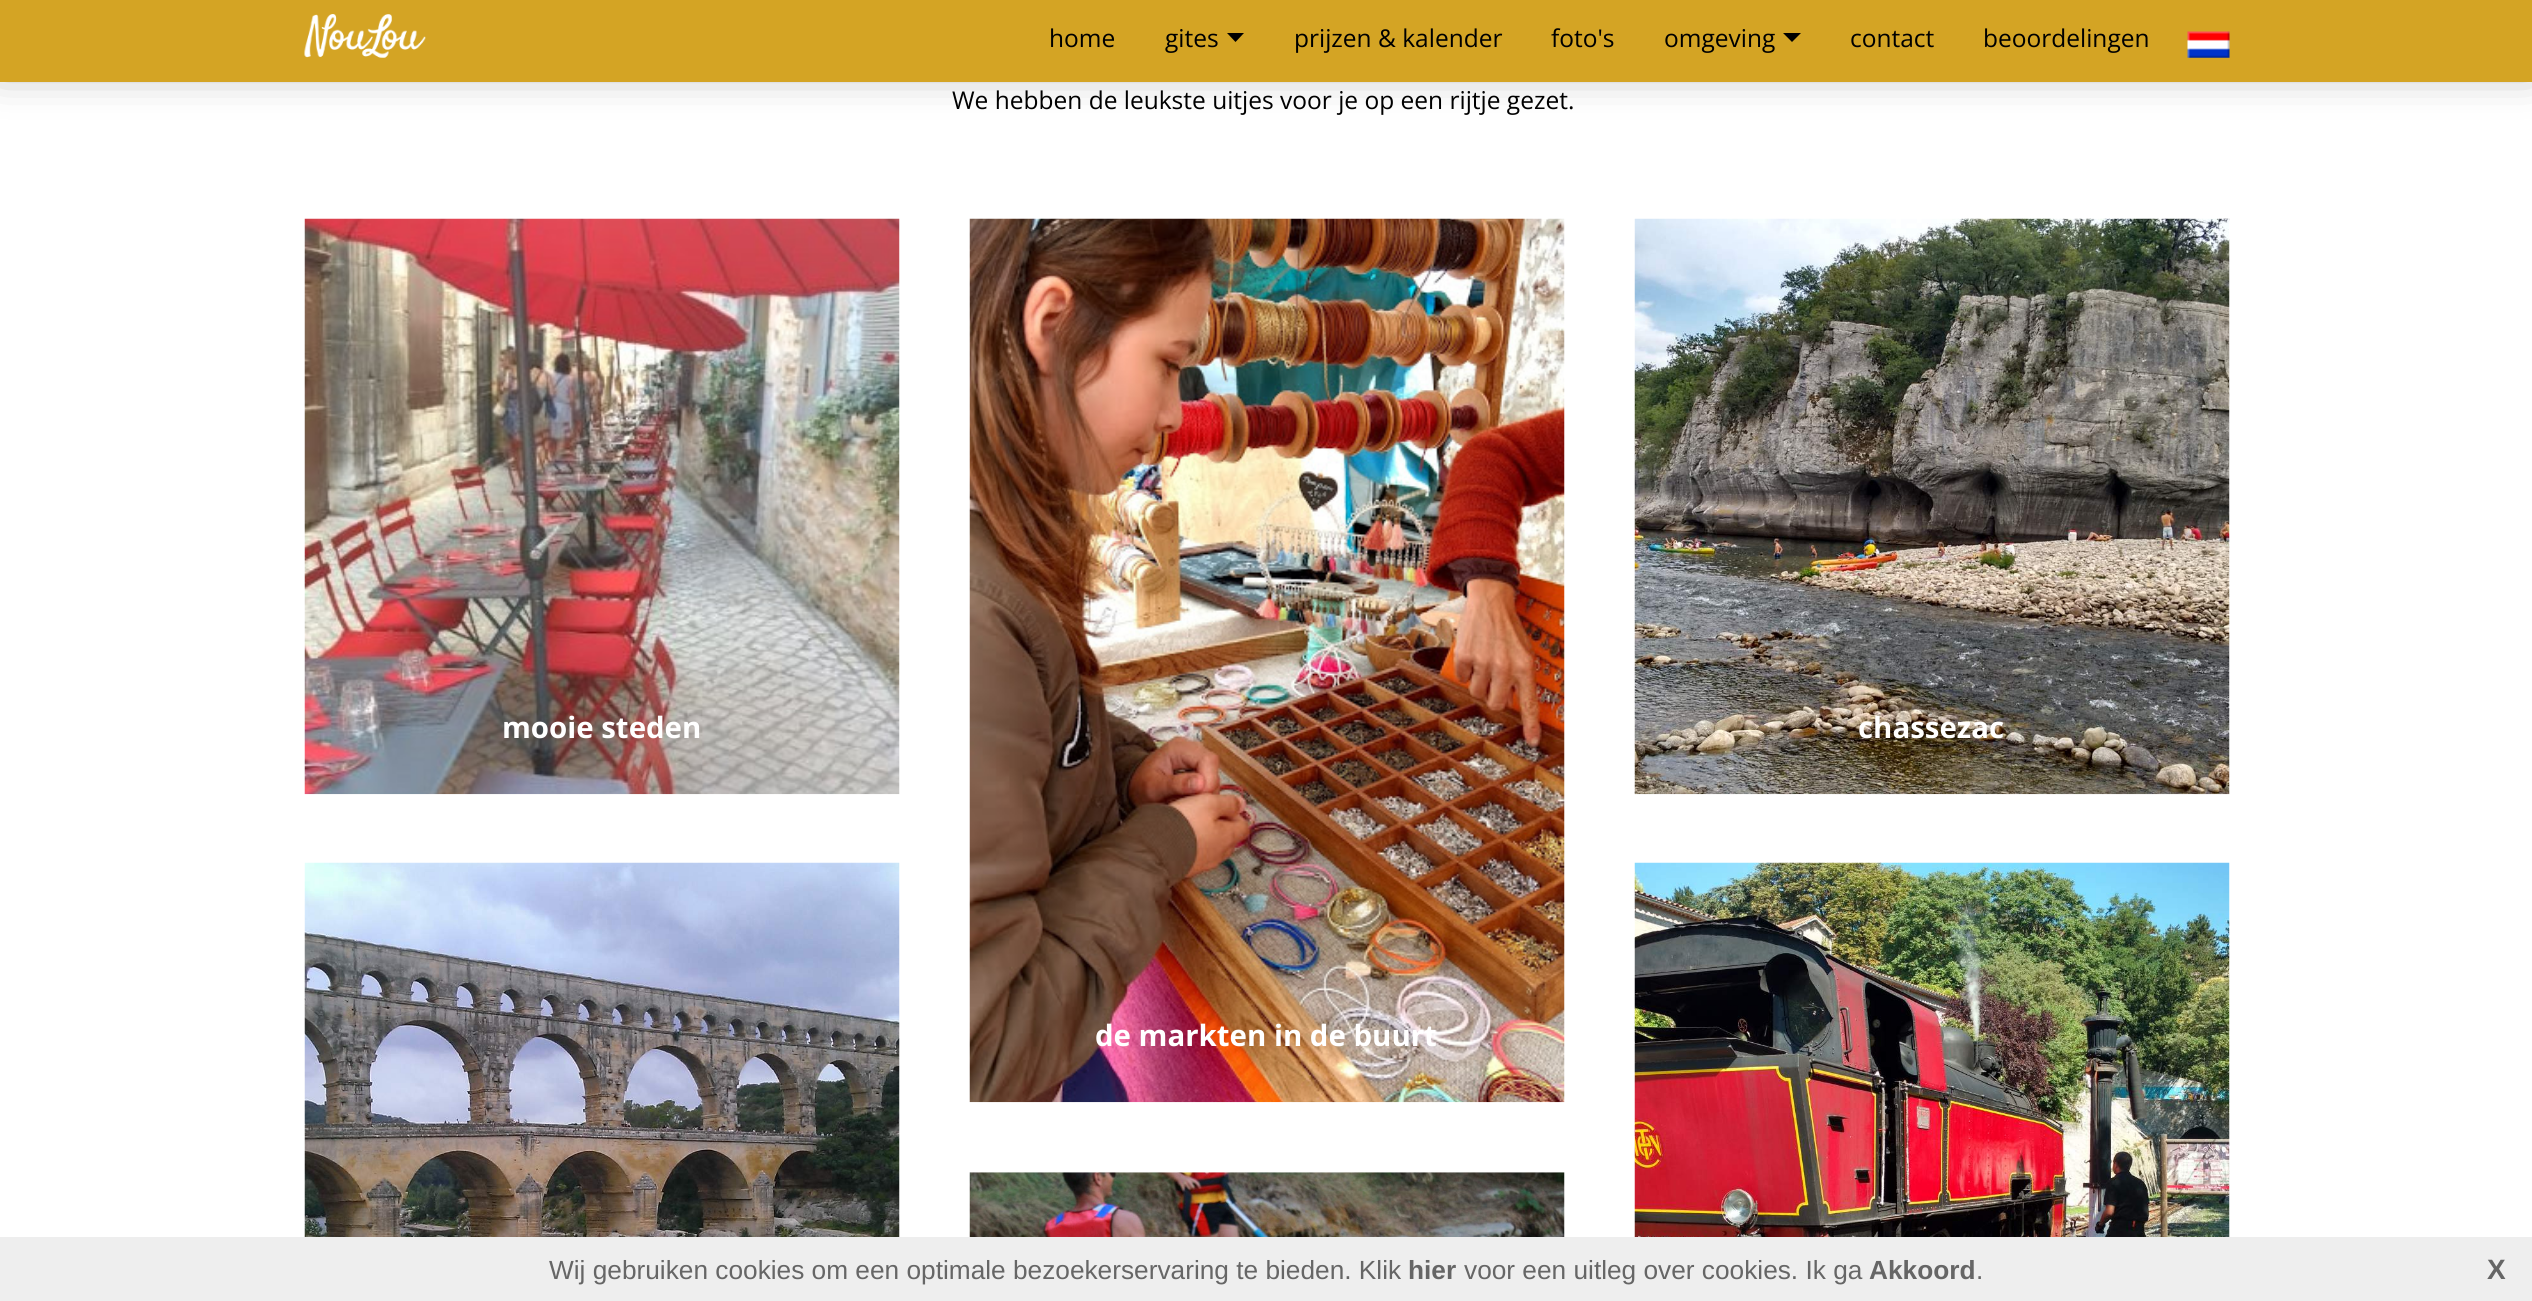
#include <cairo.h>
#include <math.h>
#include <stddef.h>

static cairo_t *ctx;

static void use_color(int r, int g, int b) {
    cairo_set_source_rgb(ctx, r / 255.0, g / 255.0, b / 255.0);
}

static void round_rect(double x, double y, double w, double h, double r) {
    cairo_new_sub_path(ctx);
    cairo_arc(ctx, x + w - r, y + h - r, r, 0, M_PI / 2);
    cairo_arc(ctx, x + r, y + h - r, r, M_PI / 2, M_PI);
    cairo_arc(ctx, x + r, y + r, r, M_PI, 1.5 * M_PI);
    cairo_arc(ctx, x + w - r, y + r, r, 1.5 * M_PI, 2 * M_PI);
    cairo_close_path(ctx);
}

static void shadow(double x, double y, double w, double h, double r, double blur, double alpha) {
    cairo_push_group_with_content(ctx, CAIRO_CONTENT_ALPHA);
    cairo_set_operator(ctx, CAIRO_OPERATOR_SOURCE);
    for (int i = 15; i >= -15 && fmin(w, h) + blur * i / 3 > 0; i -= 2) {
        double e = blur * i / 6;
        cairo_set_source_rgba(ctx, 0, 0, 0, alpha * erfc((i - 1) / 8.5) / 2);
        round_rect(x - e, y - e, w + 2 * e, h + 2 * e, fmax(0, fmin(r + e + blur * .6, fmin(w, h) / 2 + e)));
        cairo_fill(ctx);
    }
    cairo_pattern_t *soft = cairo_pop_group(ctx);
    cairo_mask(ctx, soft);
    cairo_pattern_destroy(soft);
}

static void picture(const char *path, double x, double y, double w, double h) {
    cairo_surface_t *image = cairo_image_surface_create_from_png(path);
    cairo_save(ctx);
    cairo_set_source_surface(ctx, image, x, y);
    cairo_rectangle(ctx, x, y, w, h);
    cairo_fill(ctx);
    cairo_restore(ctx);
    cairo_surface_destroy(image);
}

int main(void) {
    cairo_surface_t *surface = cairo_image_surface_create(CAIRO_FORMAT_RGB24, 2532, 1301);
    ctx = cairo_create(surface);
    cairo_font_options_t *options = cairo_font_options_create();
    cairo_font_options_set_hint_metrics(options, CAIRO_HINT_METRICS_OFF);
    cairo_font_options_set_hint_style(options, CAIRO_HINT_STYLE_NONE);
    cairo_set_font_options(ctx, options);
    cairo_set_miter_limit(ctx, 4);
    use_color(255, 255, 255);
    cairo_paint(ctx);
    use_color(136, 136, 136);
    shadow(0, -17, 2532, 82, 0, 22, 1);
    use_color(212, 164, 36);
    cairo_rectangle(ctx, 0, 0, 2532, 82);
    cairo_fill(ctx);
    picture("img1.png", 304, 14, 122, 44);
    cairo_select_font_face(ctx, "Open Sans", CAIRO_FONT_SLANT_NORMAL, CAIRO_FONT_WEIGHT_NORMAL);
    cairo_set_font_size(ctx, 24.5);
    use_color(0, 0, 0);
    cairo_move_to(ctx, 1049, 47);
    cairo_show_text(ctx, "home");
    cairo_move_to(ctx, 1165, 47);
    cairo_show_text(ctx, "gites");
    cairo_new_path(ctx);
    cairo_move_to(ctx, 1227, 33);
    cairo_line_to(ctx, 1244, 33);
    cairo_line_to(ctx, 1235.5, 42);
    cairo_close_path(ctx);
    cairo_fill(ctx);
    cairo_move_to(ctx, 1294, 47);
    cairo_show_text(ctx, "prijzen & kalender");
    cairo_move_to(ctx, 1551, 47);
    cairo_show_text(ctx, "foto's");
    cairo_move_to(ctx, 1664, 47);
    cairo_show_text(ctx, "omgeving");
    cairo_new_path(ctx);
    cairo_move_to(ctx, 1783, 33);
    cairo_line_to(ctx, 1801, 33);
    cairo_line_to(ctx, 1792, 42);
    cairo_close_path(ctx);
    cairo_fill(ctx);
    cairo_move_to(ctx, 1850, 47);
    cairo_show_text(ctx, "contact");
    cairo_move_to(ctx, 1983, 47);
    cairo_show_text(ctx, "beoordelingen");
    picture("img2.png", 2187, 31, 43, 27);
    cairo_move_to(ctx, 952, 109);
    cairo_show_text(ctx, "We hebben de leukste uitjes voor je op een rijtje gezet.");
    picture("img3.png", 304, 218, 596, 577);
    cairo_select_font_face(ctx, "Open Sans", CAIRO_FONT_SLANT_NORMAL, CAIRO_FONT_WEIGHT_BOLD);
    cairo_set_font_size(ctx, 29.4);
    use_color(255, 255, 255);
    cairo_move_to(ctx, 502, 738);
    cairo_show_text(ctx, "mooie steden");
    picture("img4.png", 1634, 218, 596, 577);
    cairo_move_to(ctx, 1858, 738);
    cairo_show_text(ctx, "chassezac");
    picture("img5.png", 304, 862, 596, 375);
    picture("img6.png", 969, 218, 596, 885);
    cairo_move_to(ctx, 1095, 1046);
    cairo_show_text(ctx, "de markten in de buurt");
    picture("img7.png", 1634, 862, 596, 375);
    picture("img8.png", 969, 1172, 596, 65);
    use_color(238, 238, 238);
    cairo_rectangle(ctx, 0, 1237, 2532, 64);
    cairo_fill(ctx);
    cairo_select_font_face(ctx, "Liberation Sans", CAIRO_FONT_SLANT_NORMAL, CAIRO_FONT_WEIGHT_NORMAL);
    cairo_set_font_size(ctx, 26.25);
    use_color(102, 102, 102);
    cairo_move_to(ctx, 549, 1279);
    cairo_show_text(ctx, "Wij gebruiken cookies om een optimale bezoekerservaring te bieden. Klik");
    cairo_select_font_face(ctx, "Liberation Sans", CAIRO_FONT_SLANT_NORMAL, CAIRO_FONT_WEIGHT_BOLD);
    cairo_move_to(ctx, 1408, 1279);
    cairo_show_text(ctx, "hier");
    cairo_select_font_face(ctx, "Liberation Sans", CAIRO_FONT_SLANT_NORMAL, CAIRO_FONT_WEIGHT_NORMAL);
    cairo_move_to(ctx, 1464, 1279);
    cairo_show_text(ctx, "voor een uitleg over cookies. Ik ga");
    cairo_select_font_face(ctx, "Liberation Sans", CAIRO_FONT_SLANT_NORMAL, CAIRO_FONT_WEIGHT_BOLD);
    cairo_move_to(ctx, 1869, 1279);
    cairo_show_text(ctx, "Akkoord");
    cairo_select_font_face(ctx, "Liberation Sans", CAIRO_FONT_SLANT_NORMAL, CAIRO_FONT_WEIGHT_NORMAL);
    cairo_move_to(ctx, 1976, 1279);
    cairo_show_text(ctx, ".");
    cairo_select_font_face(ctx, "Liberation Sans", CAIRO_FONT_SLANT_NORMAL, CAIRO_FONT_WEIGHT_BOLD);
    cairo_set_font_size(ctx, 28);
    cairo_move_to(ctx, 2487, 1279);
    cairo_show_text(ctx, "X");
    cairo_surface_write_to_png(surface, "result.png");
    cairo_font_options_destroy(options);
    cairo_destroy(ctx);
    cairo_surface_destroy(surface);
    return 0;
}
